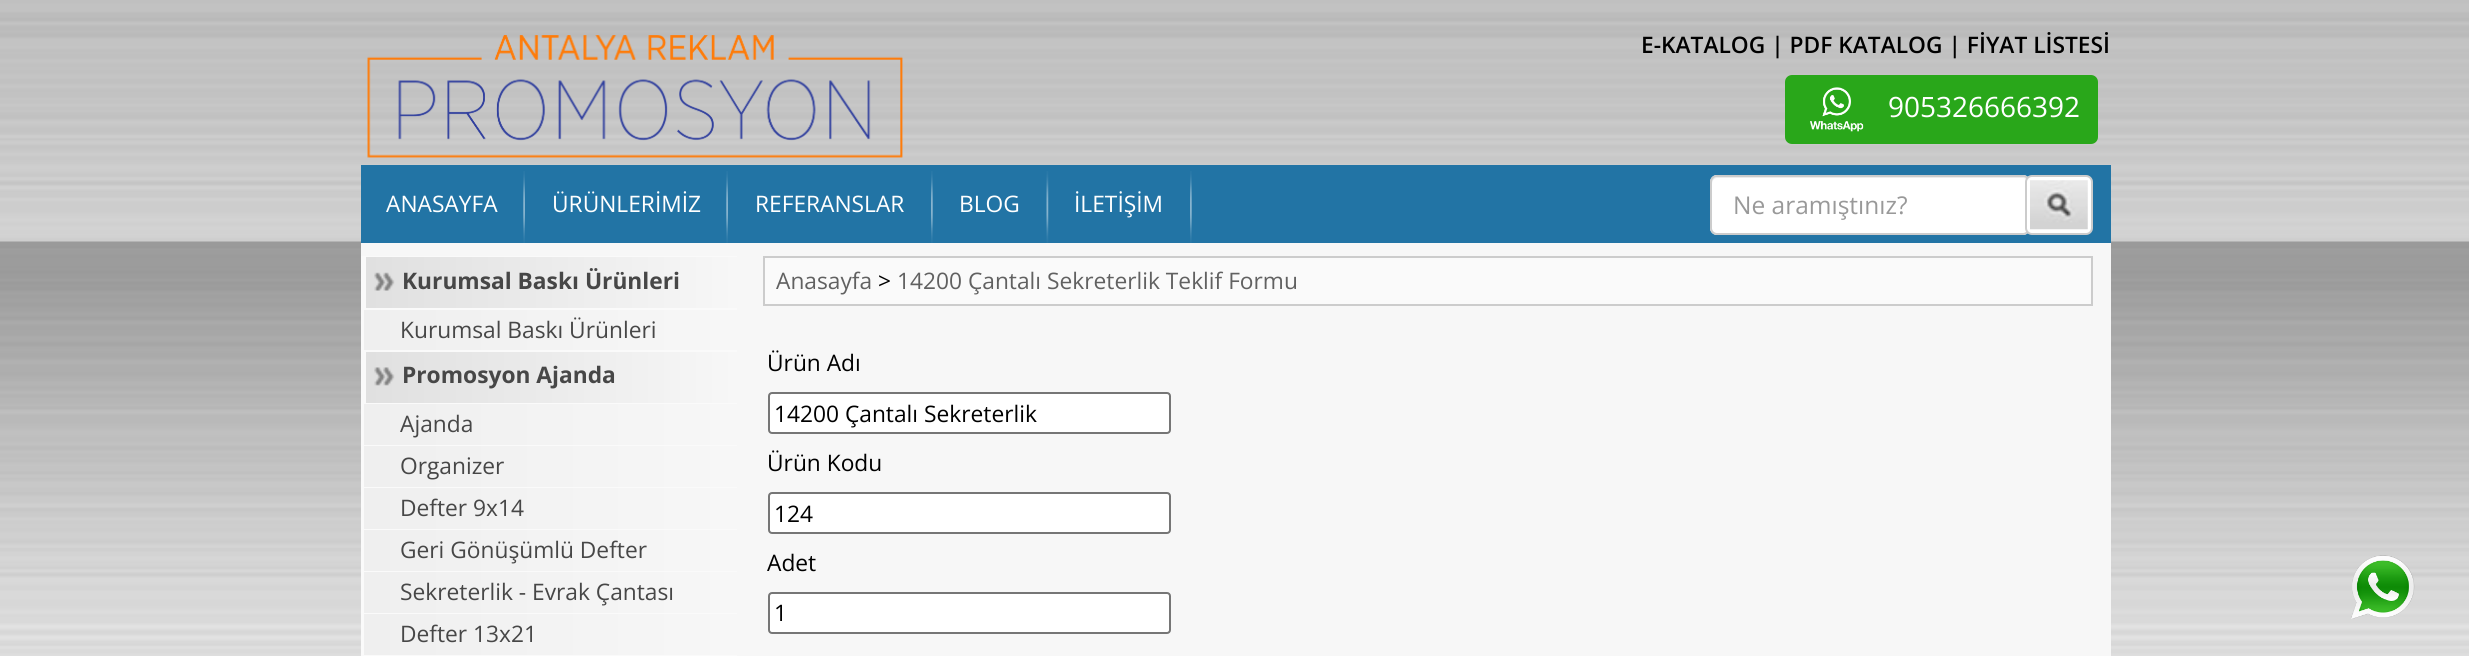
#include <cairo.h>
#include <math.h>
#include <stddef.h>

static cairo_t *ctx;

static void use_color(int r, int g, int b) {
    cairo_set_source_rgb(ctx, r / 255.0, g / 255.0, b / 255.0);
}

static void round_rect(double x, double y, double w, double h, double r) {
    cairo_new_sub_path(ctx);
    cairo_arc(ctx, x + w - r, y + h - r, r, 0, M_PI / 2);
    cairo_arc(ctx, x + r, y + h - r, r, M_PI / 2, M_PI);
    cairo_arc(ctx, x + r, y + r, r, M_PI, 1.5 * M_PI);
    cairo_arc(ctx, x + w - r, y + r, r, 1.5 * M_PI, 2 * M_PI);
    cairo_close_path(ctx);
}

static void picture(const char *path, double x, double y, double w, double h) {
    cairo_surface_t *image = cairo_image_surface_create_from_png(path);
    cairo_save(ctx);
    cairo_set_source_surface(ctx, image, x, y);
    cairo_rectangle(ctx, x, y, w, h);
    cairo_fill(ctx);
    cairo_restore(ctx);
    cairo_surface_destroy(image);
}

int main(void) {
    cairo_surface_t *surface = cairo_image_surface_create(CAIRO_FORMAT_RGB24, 2469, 656);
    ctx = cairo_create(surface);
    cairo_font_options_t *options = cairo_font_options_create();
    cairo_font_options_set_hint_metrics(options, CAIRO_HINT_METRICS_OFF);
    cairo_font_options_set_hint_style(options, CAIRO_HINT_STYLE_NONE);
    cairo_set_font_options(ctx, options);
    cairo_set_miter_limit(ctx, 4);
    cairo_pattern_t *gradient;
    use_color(255, 255, 255);
    cairo_paint(ctx);
    picture("img1.png", 0, 0, 2469, 656);
    picture("img2.png", 367, 35, 536, 123);
    cairo_select_font_face(ctx, "Open Sans SemiBold", CAIRO_FONT_SLANT_NORMAL, CAIRO_FONT_WEIGHT_NORMAL);
    cairo_set_font_size(ctx, 22.75);
    use_color(0, 0, 0);
    cairo_move_to(ctx, 1641, 53);
    cairo_show_text(ctx, "E-KATALOG | PDF KATALOG | FİYAT LİSTESİ");
    use_color(41, 167, 26);
    round_rect(1785, 75, 313, 69, 7);
    cairo_fill(ctx);
    picture("img3.png", 1810, 87, 54, 45);
    cairo_select_font_face(ctx, "Open Sans", CAIRO_FONT_SLANT_NORMAL, CAIRO_FONT_WEIGHT_NORMAL);
    cairo_set_font_size(ctx, 28);
    use_color(255, 255, 255);
    cairo_move_to(ctx, 1888, 117);
    cairo_show_text(ctx, "905326666392");
    use_color(34, 116, 165);
    cairo_rectangle(ctx, 361, 165, 1750, 78);
    cairo_fill(ctx);
    cairo_set_font_size(ctx, 22.75);
    use_color(255, 255, 255);
    cairo_move_to(ctx, 386, 212);
    cairo_show_text(ctx, "ANASAYFA");
    picture("img4.png", 523, 171, 2, 72);
    cairo_move_to(ctx, 552, 212);
    cairo_show_text(ctx, "ÜRÜNLERİMİZ");
    picture("img4.png", 726, 171, 2, 72);
    cairo_move_to(ctx, 755, 212);
    cairo_show_text(ctx, "REFERANSLAR");
    picture("img5.png", 931, 171, 2, 72);
    cairo_move_to(ctx, 959, 212);
    cairo_show_text(ctx, "BLOG");
    picture("img6.png", 1046, 171, 3, 72);
    cairo_move_to(ctx, 1074, 212);
    cairo_show_text(ctx, "İLETİŞİM");
    picture("img5.png", 1190, 171, 2, 72);
    round_rect(1710, 175, 320, 60, 7);
    cairo_fill(ctx);
    use_color(236, 236, 236);
    cairo_new_path(ctx);
    cairo_move_to(ctx, 1717, 178);
    cairo_line_to(ctx, 2023, 178);
    cairo_curve_to(ctx, 2026, 178, 2028, 181, 2028, 184);
    cairo_line_to(ctx, 2028, 182);
    cairo_curve_to(ctx, 2028, 179, 2026, 177, 2023, 177);
    cairo_line_to(ctx, 1717, 177);
    cairo_curve_to(ctx, 1714, 177, 1712, 179, 1712, 182);
    cairo_line_to(ctx, 1712, 184);
    cairo_curve_to(ctx, 1712, 181, 1714, 178, 1717, 178);
    cairo_close_path(ctx);
    cairo_fill(ctx);
    round_rect(1711, 176, 318, 58, 6);
    use_color(204, 204, 204);
    cairo_stroke(ctx);
    cairo_set_font_size(ctx, 24.5);
    use_color(153, 153, 153);
    cairo_move_to(ctx, 1733, 214);
    cairo_show_text(ctx, "Ne aramıştınız?");
    use_color(255, 255, 255);
    round_rect(2026, 176, 66, 58, 6);
    cairo_fill_preserve(ctx);
    use_color(204, 204, 204);
    cairo_stroke(ctx);
    picture("img7.png", 2030, 180, 58, 50);
    use_color(247, 247, 247);
    cairo_rectangle(ctx, 361, 243, 1750, 413);
    cairo_fill(ctx);
    use_color(250, 250, 250);
    cairo_rectangle(ctx, 361, 256, 376, 400);
    cairo_fill(ctx);
    gradient = cairo_pattern_create_linear(366, 283, 737, 283);
    cairo_pattern_add_color_stop_rgba(gradient, 0, 0.878, 0.878, 0.878, 1);
    cairo_pattern_add_color_stop_rgba(gradient, 1, 0.969, 0.969, 0.969, 1);
    cairo_set_source(ctx, gradient);
    cairo_pattern_destroy(gradient);
    cairo_rectangle(ctx, 366, 257, 371, 51);
    cairo_fill(ctx);
    picture("img8.png", 374, 272, 21, 19);
    cairo_select_font_face(ctx, "Open Sans", CAIRO_FONT_SLANT_NORMAL, CAIRO_FONT_WEIGHT_BOLD);
    cairo_set_font_size(ctx, 22.75);
    use_color(71, 71, 71);
    cairo_move_to(ctx, 402, 289);
    cairo_show_text(ctx, "Kurumsal Baskı Ürünleri");
    gradient = cairo_pattern_create_linear(364, 330, 737, 330);
    cairo_pattern_add_color_stop_rgba(gradient, 0, 0.937, 0.937, 0.937, 1);
    cairo_pattern_add_color_stop_rgba(gradient, 1, 0.969, 0.969, 0.969, 1);
    cairo_set_source(ctx, gradient);
    cairo_pattern_destroy(gradient);
    cairo_rectangle(ctx, 364, 310, 373, 40);
    cairo_fill(ctx);
    cairo_select_font_face(ctx, "Open Sans", CAIRO_FONT_SLANT_NORMAL, CAIRO_FONT_WEIGHT_NORMAL);
    use_color(71, 71, 71);
    cairo_move_to(ctx, 400, 338);
    cairo_show_text(ctx, "Kurumsal Baskı Ürünleri");
    gradient = cairo_pattern_create_linear(366, 377, 737, 377);
    cairo_pattern_add_color_stop_rgba(gradient, 0, 0.878, 0.878, 0.878, 1);
    cairo_pattern_add_color_stop_rgba(gradient, 1, 0.969, 0.969, 0.969, 1);
    cairo_set_source(ctx, gradient);
    cairo_pattern_destroy(gradient);
    cairo_rectangle(ctx, 366, 352, 371, 51);
    cairo_fill(ctx);
    picture("img9.png", 374, 367, 21, 19);
    cairo_select_font_face(ctx, "Open Sans", CAIRO_FONT_SLANT_NORMAL, CAIRO_FONT_WEIGHT_BOLD);
    use_color(71, 71, 71);
    cairo_move_to(ctx, 402, 383);
    cairo_show_text(ctx, "Promosyon Ajanda");
    gradient = cairo_pattern_create_linear(364, 424, 737, 424);
    cairo_pattern_add_color_stop_rgba(gradient, 0, 0.937, 0.937, 0.937, 1);
    cairo_pattern_add_color_stop_rgba(gradient, 1, 0.969, 0.969, 0.969, 1);
    cairo_set_source(ctx, gradient);
    cairo_pattern_destroy(gradient);
    cairo_rectangle(ctx, 364, 404, 373, 41);
    cairo_fill(ctx);
    cairo_select_font_face(ctx, "Open Sans", CAIRO_FONT_SLANT_NORMAL, CAIRO_FONT_WEIGHT_NORMAL);
    use_color(71, 71, 71);
    cairo_move_to(ctx, 400, 432);
    cairo_show_text(ctx, "Ajanda");
    gradient = cairo_pattern_create_linear(364, 466, 737, 466);
    cairo_pattern_add_color_stop_rgba(gradient, 0, 0.937, 0.937, 0.937, 1);
    cairo_pattern_add_color_stop_rgba(gradient, 1, 0.969, 0.969, 0.969, 1);
    cairo_set_source(ctx, gradient);
    cairo_pattern_destroy(gradient);
    cairo_rectangle(ctx, 364, 446, 373, 41);
    cairo_fill(ctx);
    use_color(71, 71, 71);
    cairo_move_to(ctx, 400, 474);
    cairo_show_text(ctx, "Organizer");
    gradient = cairo_pattern_create_linear(364, 508, 737, 508);
    cairo_pattern_add_color_stop_rgba(gradient, 0, 0.937, 0.937, 0.937, 1);
    cairo_pattern_add_color_stop_rgba(gradient, 1, 0.969, 0.969, 0.969, 1);
    cairo_set_source(ctx, gradient);
    cairo_pattern_destroy(gradient);
    cairo_rectangle(ctx, 364, 488, 373, 41);
    cairo_fill(ctx);
    use_color(71, 71, 71);
    cairo_move_to(ctx, 400, 516);
    cairo_show_text(ctx, "Defter 9x14");
    gradient = cairo_pattern_create_linear(364, 550, 737, 550);
    cairo_pattern_add_color_stop_rgba(gradient, 0, 0.937, 0.937, 0.937, 1);
    cairo_pattern_add_color_stop_rgba(gradient, 1, 0.969, 0.969, 0.969, 1);
    cairo_set_source(ctx, gradient);
    cairo_pattern_destroy(gradient);
    cairo_rectangle(ctx, 364, 530, 373, 41);
    cairo_fill(ctx);
    use_color(71, 71, 71);
    cairo_move_to(ctx, 400, 558);
    cairo_show_text(ctx, "Geri Gönüşümlü Defter");
    gradient = cairo_pattern_create_linear(364, 592, 737, 592);
    cairo_pattern_add_color_stop_rgba(gradient, 0, 0.937, 0.937, 0.937, 1);
    cairo_pattern_add_color_stop_rgba(gradient, 1, 0.969, 0.969, 0.969, 1);
    cairo_set_source(ctx, gradient);
    cairo_pattern_destroy(gradient);
    cairo_rectangle(ctx, 364, 572, 373, 41);
    cairo_fill(ctx);
    use_color(71, 71, 71);
    cairo_move_to(ctx, 400, 600);
    cairo_show_text(ctx, "Sekreterlik - Evrak Çantası");
    gradient = cairo_pattern_create_linear(364, 634, 737, 634);
    cairo_pattern_add_color_stop_rgba(gradient, 0, 0.937, 0.937, 0.937, 1);
    cairo_pattern_add_color_stop_rgba(gradient, 1, 0.969, 0.969, 0.969, 1);
    cairo_set_source(ctx, gradient);
    cairo_pattern_destroy(gradient);
    cairo_rectangle(ctx, 364, 614, 373, 41);
    cairo_fill(ctx);
    use_color(71, 71, 71);
    cairo_move_to(ctx, 400, 642);
    cairo_show_text(ctx, "Defter 13x21");
    use_color(250, 250, 250);
    cairo_rectangle(ctx, 764, 257, 1328, 48);
    cairo_fill_preserve(ctx);
    use_color(204, 204, 204);
    cairo_stroke(ctx);
    use_color(97, 97, 97);
    cairo_move_to(ctx, 776, 289);
    cairo_show_text(ctx, "Anasayfa");
    use_color(0, 0, 0);
    cairo_move_to(ctx, 878, 289);
    cairo_show_text(ctx, ">");
    use_color(97, 97, 97);
    cairo_move_to(ctx, 897, 289);
    cairo_show_text(ctx, "14200 Çantalı Sekreterlik Teklif Formu");
    use_color(0, 0, 0);
    cairo_move_to(ctx, 767, 371);
    cairo_show_text(ctx, "Ürün Adı");
    use_color(255, 255, 255);
    round_rect(769, 393, 401, 40, 3);
    cairo_fill_preserve(ctx);
    use_color(118, 118, 118);
    cairo_stroke(ctx);
    use_color(0, 0, 0);
    cairo_move_to(ctx, 774, 422);
    cairo_show_text(ctx, "14200 Çantalı Sekreterlik");
    cairo_move_to(ctx, 767, 471);
    cairo_show_text(ctx, "Ürün Kodu");
    use_color(255, 255, 255);
    round_rect(769, 493, 401, 40, 3);
    cairo_fill_preserve(ctx);
    use_color(118, 118, 118);
    cairo_stroke(ctx);
    use_color(0, 0, 0);
    cairo_move_to(ctx, 774, 522);
    cairo_show_text(ctx, "124");
    cairo_move_to(ctx, 767, 571);
    cairo_show_text(ctx, "Adet");
    use_color(255, 255, 255);
    round_rect(769, 593, 401, 40, 3);
    cairo_fill_preserve(ctx);
    use_color(118, 118, 118);
    cairo_stroke(ctx);
    use_color(0, 0, 0);
    cairo_move_to(ctx, 774, 621);
    cairo_show_text(ctx, "1");
    picture("img10.png", 2351, 555, 64, 64);
    cairo_surface_write_to_png(surface, "result.png");
    cairo_font_options_destroy(options);
    cairo_destroy(ctx);
    cairo_surface_destroy(surface);
    return 0;
}
